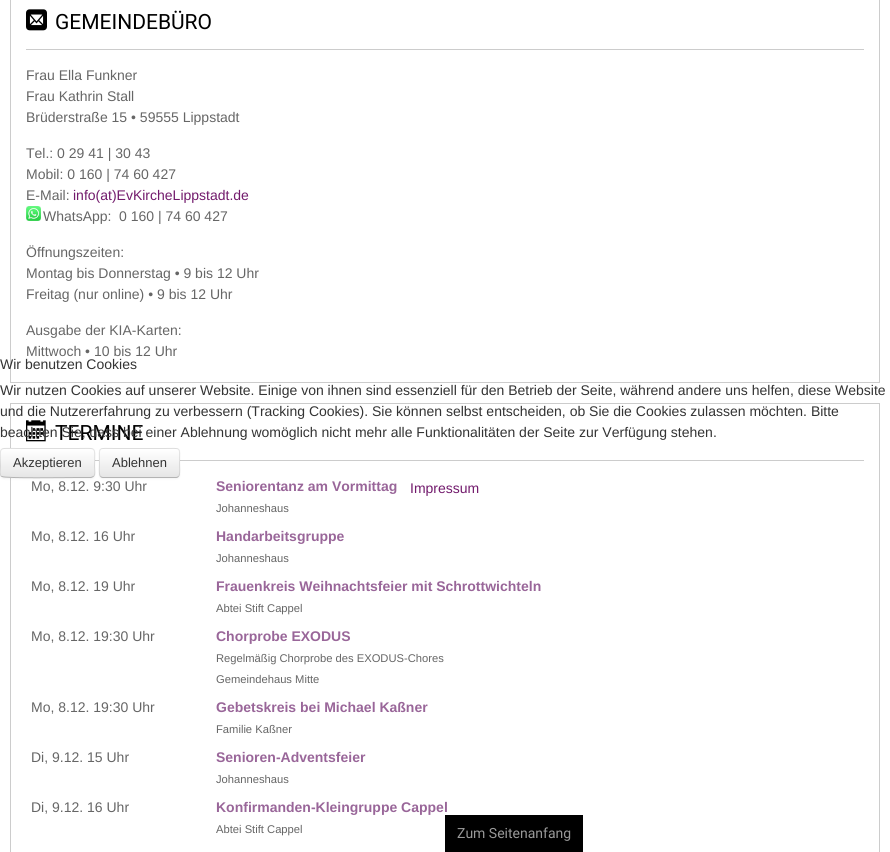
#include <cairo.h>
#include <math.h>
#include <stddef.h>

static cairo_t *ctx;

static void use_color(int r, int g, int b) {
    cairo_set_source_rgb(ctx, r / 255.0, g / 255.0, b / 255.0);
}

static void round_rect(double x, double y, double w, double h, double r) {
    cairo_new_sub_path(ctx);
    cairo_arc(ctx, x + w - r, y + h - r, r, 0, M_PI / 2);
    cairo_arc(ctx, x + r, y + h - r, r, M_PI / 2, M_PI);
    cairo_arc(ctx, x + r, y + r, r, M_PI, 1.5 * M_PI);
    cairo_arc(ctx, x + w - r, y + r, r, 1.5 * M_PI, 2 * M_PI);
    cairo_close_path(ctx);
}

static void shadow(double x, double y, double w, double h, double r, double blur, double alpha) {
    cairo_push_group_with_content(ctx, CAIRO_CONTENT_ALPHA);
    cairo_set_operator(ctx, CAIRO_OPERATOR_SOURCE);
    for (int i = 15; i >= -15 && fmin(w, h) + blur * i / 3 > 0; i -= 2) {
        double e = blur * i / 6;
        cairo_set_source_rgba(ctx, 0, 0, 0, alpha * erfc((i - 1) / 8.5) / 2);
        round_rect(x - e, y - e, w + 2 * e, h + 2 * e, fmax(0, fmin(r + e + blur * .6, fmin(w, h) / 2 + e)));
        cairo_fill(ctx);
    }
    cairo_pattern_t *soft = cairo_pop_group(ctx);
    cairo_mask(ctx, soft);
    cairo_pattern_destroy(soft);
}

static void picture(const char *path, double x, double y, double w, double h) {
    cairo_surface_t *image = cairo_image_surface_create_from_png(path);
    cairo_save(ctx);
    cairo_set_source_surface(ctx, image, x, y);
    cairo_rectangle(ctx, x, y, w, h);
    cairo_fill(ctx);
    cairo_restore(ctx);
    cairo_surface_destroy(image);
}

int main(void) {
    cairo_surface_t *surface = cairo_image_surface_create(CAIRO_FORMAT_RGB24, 890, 852);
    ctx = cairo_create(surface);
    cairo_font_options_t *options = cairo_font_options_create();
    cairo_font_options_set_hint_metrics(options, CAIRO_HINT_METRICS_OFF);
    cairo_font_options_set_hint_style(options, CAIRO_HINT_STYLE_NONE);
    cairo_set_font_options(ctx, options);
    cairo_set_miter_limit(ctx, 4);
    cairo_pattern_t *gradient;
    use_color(255, 255, 255);
    cairo_paint(ctx);
    cairo_rectangle(ctx, 10.5, -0.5, 869, 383);
    use_color(204, 204, 204);
    cairo_set_line_width(ctx, 1);
    cairo_stroke(ctx);
    cairo_rectangle(ctx, 26, 49, 838, 1);
    cairo_fill(ctx);
    picture("img1.png", 26, 9, 21, 22);
    cairo_select_font_face(ctx, "Roboto", CAIRO_FONT_SLANT_NORMAL, CAIRO_FONT_WEIGHT_NORMAL);
    cairo_set_font_size(ctx, 21);
    use_color(0, 0, 0);
    cairo_move_to(ctx, 55, 29);
    cairo_show_text(ctx, "GEMEINDEBÜRO");
    cairo_select_font_face(ctx, "Liberation Sans", CAIRO_FONT_SLANT_NORMAL, CAIRO_FONT_WEIGHT_NORMAL);
    cairo_set_font_size(ctx, 14);
    use_color(102, 102, 102);
    cairo_move_to(ctx, 26, 80);
    cairo_show_text(ctx, "Frau Ella Funkner");
    cairo_move_to(ctx, 26, 101);
    cairo_show_text(ctx, "Frau Kathrin Stall");
    cairo_move_to(ctx, 26, 122);
    cairo_show_text(ctx, "Brüderstraße 15 • 59555 Lippstadt");
    cairo_move_to(ctx, 26, 158);
    cairo_show_text(ctx, "Tel.: 0 29 41 | 30 43");
    cairo_move_to(ctx, 26, 179);
    cairo_show_text(ctx, "Mobil: 0 160 | 74 60 427");
    cairo_move_to(ctx, 26, 200);
    cairo_show_text(ctx, "E-Mail:");
    use_color(114, 26, 108);
    cairo_move_to(ctx, 73, 200);
    cairo_show_text(ctx, "info(at)EvKircheLippstadt.de");
    picture("img2.png", 26, 206, 15, 15);
    use_color(102, 102, 102);
    cairo_move_to(ctx, 43, 221);
    cairo_show_text(ctx, "WhatsApp:");
    cairo_move_to(ctx, 119, 221);
    cairo_show_text(ctx, "0 160 | 74 60 427");
    cairo_move_to(ctx, 26, 257);
    cairo_show_text(ctx, "Öffnungszeiten:");
    cairo_move_to(ctx, 26, 278);
    cairo_show_text(ctx, "Montag bis Donnerstag • 9 bis 12 Uhr");
    cairo_move_to(ctx, 26, 299);
    cairo_show_text(ctx, "Freitag (nur online) • 9 bis 12 Uhr");
    cairo_move_to(ctx, 26, 335);
    cairo_show_text(ctx, "Ausgabe der KIA-Karten:");
    cairo_move_to(ctx, 26, 356);
    cairo_show_text(ctx, "Mittwoch • 10 bis 12 Uhr");
    cairo_rectangle(ctx, 10.5, 403.5, 869, 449);
    use_color(204, 204, 204);
    cairo_stroke(ctx);
    cairo_rectangle(ctx, 95, 460, 769, 1);
    cairo_fill(ctx);
    picture("img3.png", 26, 420, 20, 22);
    cairo_select_font_face(ctx, "Roboto", CAIRO_FONT_SLANT_NORMAL, CAIRO_FONT_WEIGHT_NORMAL);
    cairo_set_font_size(ctx, 21);
    use_color(0, 0, 0);
    cairo_move_to(ctx, 55, 440);
    cairo_show_text(ctx, "TERMINE");
    cairo_select_font_face(ctx, "Liberation Sans", CAIRO_FONT_SLANT_NORMAL, CAIRO_FONT_WEIGHT_NORMAL);
    cairo_set_font_size(ctx, 14);
    use_color(102, 102, 102);
    cairo_move_to(ctx, 31, 491);
    cairo_show_text(ctx, "Mo, 8.12. 9:30 Uhr");
    cairo_select_font_face(ctx, "Liberation Sans", CAIRO_FONT_SLANT_NORMAL, CAIRO_FONT_WEIGHT_BOLD);
    use_color(153, 102, 153);
    cairo_move_to(ctx, 216, 491);
    cairo_show_text(ctx, "Seniorentanz am Vormittag");
    cairo_select_font_face(ctx, "Liberation Sans", CAIRO_FONT_SLANT_NORMAL, CAIRO_FONT_WEIGHT_NORMAL);
    cairo_set_font_size(ctx, 11.2);
    use_color(102, 102, 102);
    cairo_move_to(ctx, 216, 512);
    cairo_show_text(ctx, "Johanneshaus");
    cairo_set_font_size(ctx, 14);
    cairo_move_to(ctx, 31, 541);
    cairo_show_text(ctx, "Mo, 8.12. 16 Uhr");
    cairo_select_font_face(ctx, "Liberation Sans", CAIRO_FONT_SLANT_NORMAL, CAIRO_FONT_WEIGHT_BOLD);
    use_color(153, 102, 153);
    cairo_move_to(ctx, 216, 541);
    cairo_show_text(ctx, "Handarbeitsgruppe");
    cairo_select_font_face(ctx, "Liberation Sans", CAIRO_FONT_SLANT_NORMAL, CAIRO_FONT_WEIGHT_NORMAL);
    cairo_set_font_size(ctx, 11.2);
    use_color(102, 102, 102);
    cairo_move_to(ctx, 216, 562);
    cairo_show_text(ctx, "Johanneshaus");
    cairo_set_font_size(ctx, 14);
    cairo_move_to(ctx, 31, 591);
    cairo_show_text(ctx, "Mo, 8.12. 19 Uhr");
    cairo_select_font_face(ctx, "Liberation Sans", CAIRO_FONT_SLANT_NORMAL, CAIRO_FONT_WEIGHT_BOLD);
    use_color(153, 102, 153);
    cairo_move_to(ctx, 216, 591);
    cairo_show_text(ctx, "Frauenkreis Weihnachtsfeier mit Schrottwichteln");
    cairo_select_font_face(ctx, "Liberation Sans", CAIRO_FONT_SLANT_NORMAL, CAIRO_FONT_WEIGHT_NORMAL);
    cairo_set_font_size(ctx, 11.2);
    use_color(102, 102, 102);
    cairo_move_to(ctx, 216, 612);
    cairo_show_text(ctx, "Abtei Stift Cappel");
    cairo_set_font_size(ctx, 14);
    cairo_move_to(ctx, 31, 641);
    cairo_show_text(ctx, "Mo, 8.12. 19:30 Uhr");
    cairo_select_font_face(ctx, "Liberation Sans", CAIRO_FONT_SLANT_NORMAL, CAIRO_FONT_WEIGHT_BOLD);
    use_color(153, 102, 153);
    cairo_move_to(ctx, 216, 641);
    cairo_show_text(ctx, "Chorprobe EXODUS");
    cairo_select_font_face(ctx, "Liberation Sans", CAIRO_FONT_SLANT_NORMAL, CAIRO_FONT_WEIGHT_NORMAL);
    cairo_set_font_size(ctx, 11.2);
    use_color(102, 102, 102);
    cairo_move_to(ctx, 216, 662);
    cairo_show_text(ctx, "Regelmäßig Chorprobe des EXODUS-Chores");
    cairo_move_to(ctx, 216, 683);
    cairo_show_text(ctx, "Gemeindehaus Mitte");
    cairo_set_font_size(ctx, 14);
    cairo_move_to(ctx, 31, 712);
    cairo_show_text(ctx, "Mo, 8.12. 19:30 Uhr");
    cairo_select_font_face(ctx, "Liberation Sans", CAIRO_FONT_SLANT_NORMAL, CAIRO_FONT_WEIGHT_BOLD);
    use_color(153, 102, 153);
    cairo_move_to(ctx, 216, 712);
    cairo_show_text(ctx, "Gebetskreis bei Michael Kaßner");
    cairo_select_font_face(ctx, "Liberation Sans", CAIRO_FONT_SLANT_NORMAL, CAIRO_FONT_WEIGHT_NORMAL);
    cairo_set_font_size(ctx, 11.2);
    use_color(102, 102, 102);
    cairo_move_to(ctx, 216, 733);
    cairo_show_text(ctx, "Familie Kaßner");
    cairo_set_font_size(ctx, 14);
    cairo_move_to(ctx, 31, 762);
    cairo_show_text(ctx, "Di, 9.12. 15 Uhr");
    cairo_select_font_face(ctx, "Liberation Sans", CAIRO_FONT_SLANT_NORMAL, CAIRO_FONT_WEIGHT_BOLD);
    use_color(153, 102, 153);
    cairo_move_to(ctx, 216, 762);
    cairo_show_text(ctx, "Senioren-Adventsfeier");
    cairo_select_font_face(ctx, "Liberation Sans", CAIRO_FONT_SLANT_NORMAL, CAIRO_FONT_WEIGHT_NORMAL);
    cairo_set_font_size(ctx, 11.2);
    use_color(102, 102, 102);
    cairo_move_to(ctx, 216, 783);
    cairo_show_text(ctx, "Johanneshaus");
    cairo_set_font_size(ctx, 14);
    cairo_move_to(ctx, 31, 812);
    cairo_show_text(ctx, "Di, 9.12. 16 Uhr");
    cairo_select_font_face(ctx, "Liberation Sans", CAIRO_FONT_SLANT_NORMAL, CAIRO_FONT_WEIGHT_BOLD);
    use_color(153, 102, 153);
    cairo_move_to(ctx, 216, 812);
    cairo_show_text(ctx, "Konfirmanden-Kleingruppe Cappel");
    cairo_select_font_face(ctx, "Liberation Sans", CAIRO_FONT_SLANT_NORMAL, CAIRO_FONT_WEIGHT_NORMAL);
    cairo_set_font_size(ctx, 11.2);
    use_color(102, 102, 102);
    cairo_move_to(ctx, 216, 833);
    cairo_show_text(ctx, "Abtei Stift Cappel");
    cairo_set_font_size(ctx, 14);
    use_color(51, 51, 51);
    cairo_move_to(ctx, 0, 369);
    cairo_show_text(ctx, "Wir benutzen Cookies");
    cairo_move_to(ctx, 0, 395);
    cairo_show_text(ctx, "Wir nutzen Cookies auf unserer Website. Einige von ihnen sind essenziell für den Betrieb der Seite, während andere uns helfen, diese Website");
    cairo_move_to(ctx, 0, 416);
    cairo_show_text(ctx, "und die Nutzererfahrung zu verbessern (Tracking Cookies). Sie können selbst entscheiden, ob Sie die Cookies zulassen möchten. Bitte");
    cairo_move_to(ctx, 0, 437);
    cairo_show_text(ctx, "beachten Sie, dass bei einer Ablehnung womöglich nicht mehr alle Funktionalitäten der Seite zur Verfügung stehen.");
    use_color(0, 0, 0);
    shadow(0, 449, 95, 30, 4, 1, 0.05);
    use_color(245, 245, 245);
    round_rect(0, 448, 95, 30, 4);
    cairo_fill(ctx);
    cairo_save(ctx);
    round_rect(0, 448, 95, 30, 4);
    cairo_clip(ctx);
    gradient = cairo_pattern_create_linear(48, 449, 48, 477);
    cairo_pattern_add_color_stop_rgba(gradient, 0, 1, 1, 1, 1);
    cairo_pattern_add_color_stop_rgba(gradient, 1, 0.902, 0.902, 0.902, 1);
    cairo_set_source(ctx, gradient);
    cairo_pattern_destroy(gradient);
    cairo_rectangle(ctx, 0, 449, 95, 28);
    cairo_fill(ctx);
    cairo_restore(ctx);
    cairo_new_path(ctx);
    cairo_move_to(ctx, 93.5, 476.5);
    cairo_line_to(ctx, 91, 477.5);
    cairo_line_to(ctx, 76.5, 477.5);
    cairo_curve_to(ctx, 68, 477.5, 4, 478.5, 2, 476.5);
    cairo_line_to(ctx, 1.5, 476.5);
    use_color(179, 179, 179);
    cairo_stroke(ctx);
    cairo_new_path(ctx);
    cairo_move_to(ctx, 1.5, 476.5);
    cairo_curve_to(ctx, -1, 474, 0.5, 469.5, 0.5, 466.5);
    cairo_curve_to(ctx, 0.5, 445.5, -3, 448.5, 18.5, 448.5);
    cairo_line_to(ctx, 76.5, 448.5);
    cairo_curve_to(ctx, 98, 448.5, 94.5, 445.5, 94.5, 466.5);
    cairo_curve_to(ctx, 94.5, 469.5, 96, 474, 93.5, 476.5);
    cairo_set_source_rgba(ctx, 0, 0, 0, 0.1);
    cairo_stroke(ctx);
    cairo_set_font_size(ctx, 13);
    use_color(51, 51, 51);
    cairo_move_to(ctx, 13, 467);
    cairo_show_text(ctx, "Akzeptieren");
    use_color(0, 0, 0);
    shadow(99, 449, 81, 30, 4, 1, 0.05);
    use_color(245, 245, 245);
    round_rect(99, 448, 81, 30, 4);
    cairo_fill(ctx);
    cairo_save(ctx);
    round_rect(99, 448, 81, 30, 4);
    cairo_clip(ctx);
    gradient = cairo_pattern_create_linear(140, 449, 140, 477);
    cairo_pattern_add_color_stop_rgba(gradient, 0, 1, 1, 1, 1);
    cairo_pattern_add_color_stop_rgba(gradient, 1, 0.902, 0.902, 0.902, 1);
    cairo_set_source(ctx, gradient);
    cairo_pattern_destroy(gradient);
    cairo_rectangle(ctx, 99, 449, 81, 28);
    cairo_fill(ctx);
    cairo_restore(ctx);
    cairo_new_path(ctx);
    cairo_move_to(ctx, 178.5, 476.5);
    cairo_curve_to(ctx, 178, 477, 177, 477.5, 176, 477.5);
    cairo_line_to(ctx, 103, 477.5);
    cairo_curve_to(ctx, 102, 477.5, 101, 477, 100.5, 476.5);
    use_color(179, 179, 179);
    cairo_stroke(ctx);
    cairo_new_path(ctx);
    cairo_move_to(ctx, 100.5, 476.5);
    cairo_curve_to(ctx, 98.5, 474.5, 99.5, 466, 99.5, 463);
    cairo_curve_to(ctx, 99.5, 446, 97, 448.5, 115, 448.5);
    cairo_line_to(ctx, 164, 448.5);
    cairo_curve_to(ctx, 182, 448.5, 179.5, 446, 179.5, 463);
    cairo_curve_to(ctx, 179.5, 466, 180.5, 474.5, 178.5, 476.5);
    cairo_set_source_rgba(ctx, 0, 0, 0, 0.1);
    cairo_stroke(ctx);
    use_color(51, 51, 51);
    cairo_move_to(ctx, 112, 467);
    cairo_show_text(ctx, "Ablehnen");
    cairo_set_font_size(ctx, 14);
    use_color(114, 26, 108);
    cairo_move_to(ctx, 410, 493);
    cairo_show_text(ctx, "Impressum");
    use_color(0, 0, 0);
    cairo_rectangle(ctx, 445, 815, 138, 37);
    cairo_fill(ctx);
    cairo_select_font_face(ctx, "Roboto", CAIRO_FONT_SLANT_NORMAL, CAIRO_FONT_WEIGHT_NORMAL);
    use_color(153, 153, 153);
    cairo_move_to(ctx, 457, 838);
    cairo_show_text(ctx, "Zum Seitenanfang");
    cairo_surface_write_to_png(surface, "result.png");
    cairo_font_options_destroy(options);
    cairo_destroy(ctx);
    cairo_surface_destroy(surface);
    return 0;
}
